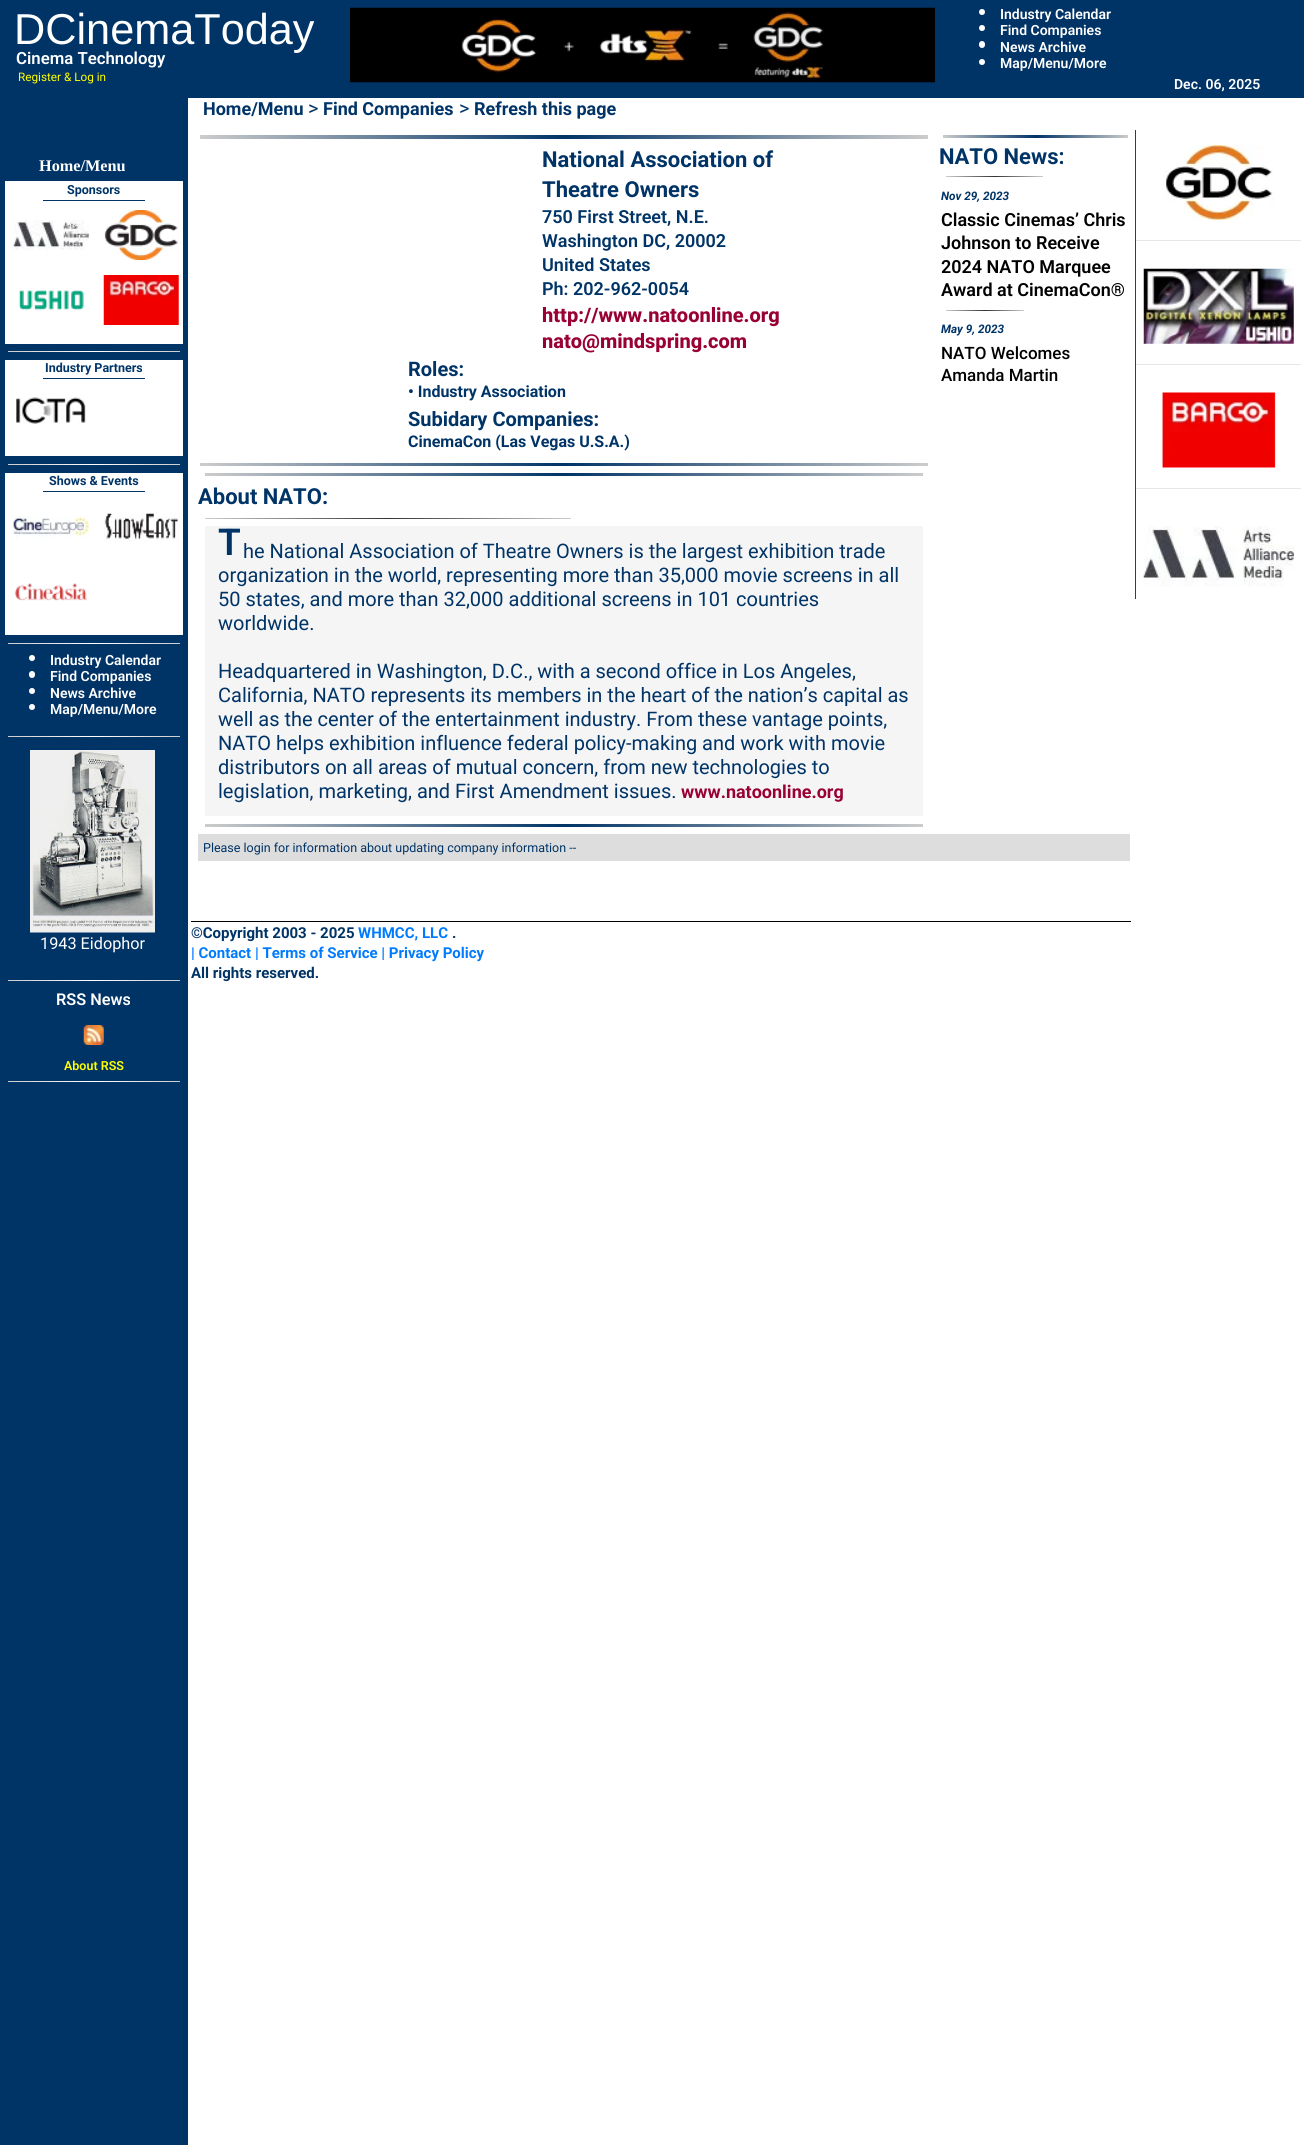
#include <cairo.h>
#include <math.h>
#include <stddef.h>

static cairo_t *ctx;

static void use_color(int r, int g, int b) {
    cairo_set_source_rgb(ctx, r / 255.0, g / 255.0, b / 255.0);
}

static void round_rect(double x, double y, double w, double h, double r) {
    cairo_new_sub_path(ctx);
    cairo_arc(ctx, x + w - r, y + h - r, r, 0, M_PI / 2);
    cairo_arc(ctx, x + r, y + h - r, r, M_PI / 2, M_PI);
    cairo_arc(ctx, x + r, y + r, r, M_PI, 1.5 * M_PI);
    cairo_arc(ctx, x + w - r, y + r, r, 1.5 * M_PI, 2 * M_PI);
    cairo_close_path(ctx);
}

static void picture(const char *path, double x, double y, double w, double h) {
    cairo_surface_t *image = cairo_image_surface_create_from_png(path);
    cairo_save(ctx);
    cairo_set_source_surface(ctx, image, x, y);
    cairo_rectangle(ctx, x, y, w, h);
    cairo_fill(ctx);
    cairo_restore(ctx);
    cairo_surface_destroy(image);
}

int main(void) {
    cairo_surface_t *surface = cairo_image_surface_create(CAIRO_FORMAT_RGB24, 1304, 2145);
    ctx = cairo_create(surface);
    cairo_font_options_t *options = cairo_font_options_create();
    cairo_font_options_set_hint_metrics(options, CAIRO_HINT_METRICS_OFF);
    cairo_font_options_set_hint_style(options, CAIRO_HINT_STYLE_NONE);
    cairo_set_font_options(ctx, options);
    cairo_set_miter_limit(ctx, 4);
    cairo_pattern_t *gradient;
    use_color(255, 255, 255);
    cairo_paint(ctx);
    use_color(0, 51, 102);
    cairo_rectangle(ctx, 0, 0, 1304, 98);
    cairo_fill(ctx);
    cairo_select_font_face(ctx, "Liberation Sans", CAIRO_FONT_SLANT_NORMAL, CAIRO_FONT_WEIGHT_NORMAL);
    cairo_set_font_size(ctx, 43.25);
    use_color(255, 255, 255);
    cairo_move_to(ctx, 14, 44);
    cairo_show_text(ctx, "DCinemaToday");
    picture("img1.png", 350, 7, 585, 76);
    cairo_arc(ctx, 982, 12, 3, 0, 2 * M_PI);
    cairo_fill(ctx);
    cairo_select_font_face(ctx, "Roboto SemiBold", CAIRO_FONT_SLANT_NORMAL, CAIRO_FONT_WEIGHT_NORMAL);
    cairo_set_font_size(ctx, 14);
    cairo_move_to(ctx, 1000, 19);
    cairo_show_text(ctx, "Industry Calendar");
    cairo_new_path(ctx);
    cairo_arc(ctx, 982, 28, 3, 0, 2 * M_PI);
    cairo_fill(ctx);
    cairo_move_to(ctx, 1000, 35);
    cairo_show_text(ctx, "Find Companies");
    round_rect(979, 41, 6, 7, 3);
    cairo_fill(ctx);
    cairo_move_to(ctx, 1000, 52);
    cairo_show_text(ctx, "News Archive");
    cairo_new_path(ctx);
    cairo_arc(ctx, 982, 62, 3, 0, 2 * M_PI);
    cairo_fill(ctx);
    cairo_move_to(ctx, 1000, 68);
    cairo_show_text(ctx, "Map/Menu/More");
    cairo_set_font_size(ctx, 16.75);
    cairo_move_to(ctx, 16, 64);
    cairo_show_text(ctx, "Cinema Technology");
    cairo_set_font_size(ctx, 14);
    cairo_move_to(ctx, 1174, 89);
    cairo_show_text(ctx, "Dec. 06, 2025");
    cairo_select_font_face(ctx, "Roboto", CAIRO_FONT_SLANT_NORMAL, CAIRO_FONT_WEIGHT_NORMAL);
    cairo_set_font_size(ctx, 11.75);
    use_color(255, 255, 0);
    cairo_move_to(ctx, 18, 81);
    cairo_show_text(ctx, "Register & Log in");
    use_color(0, 51, 102);
    cairo_rectangle(ctx, 0, 98, 188, 2047);
    cairo_fill(ctx);
    cairo_select_font_face(ctx, "Roboto", CAIRO_FONT_SLANT_NORMAL, CAIRO_FONT_WEIGHT_BOLD);
    cairo_set_font_size(ctx, 18);
    cairo_move_to(ctx, 203, 115);
    cairo_show_text(ctx, "Home/Menu");
    cairo_select_font_face(ctx, "Roboto", CAIRO_FONT_SLANT_NORMAL, CAIRO_FONT_WEIGHT_NORMAL);
    cairo_set_font_size(ctx, 20);
    cairo_move_to(ctx, 308, 115);
    cairo_show_text(ctx, ">");
    cairo_select_font_face(ctx, "Roboto", CAIRO_FONT_SLANT_NORMAL, CAIRO_FONT_WEIGHT_BOLD);
    cairo_set_font_size(ctx, 18);
    cairo_move_to(ctx, 323, 115);
    cairo_show_text(ctx, "Find Companies");
    cairo_select_font_face(ctx, "Roboto", CAIRO_FONT_SLANT_NORMAL, CAIRO_FONT_WEIGHT_NORMAL);
    cairo_set_font_size(ctx, 20);
    cairo_move_to(ctx, 459, 115);
    cairo_show_text(ctx, ">");
    cairo_select_font_face(ctx, "Roboto", CAIRO_FONT_SLANT_NORMAL, CAIRO_FONT_WEIGHT_BOLD);
    cairo_set_font_size(ctx, 18);
    cairo_move_to(ctx, 474, 115);
    cairo_show_text(ctx, "Refresh this page");
    gradient = cairo_pattern_create_linear(200, 137, 928, 137);
    cairo_pattern_add_color_stop_rgba(gradient, 0, 0.8, 0.8, 0.8, 1);
    cairo_pattern_add_color_stop_rgba(gradient, 0.5, 0, 0.2, 0.4, 1);
    cairo_pattern_add_color_stop_rgba(gradient, 1, 0.8, 0.8, 0.8, 1);
    cairo_set_source(ctx, gradient);
    cairo_pattern_destroy(gradient);
    cairo_rectangle(ctx, 200, 135, 728, 4);
    cairo_fill(ctx);
    cairo_set_font_size(ctx, 22);
    use_color(0, 51, 102);
    cairo_move_to(ctx, 542, 167);
    cairo_show_text(ctx, "National Association of");
    cairo_move_to(ctx, 542, 197);
    cairo_show_text(ctx, "Theatre Owners");
    cairo_select_font_face(ctx, "Roboto SemiBold", CAIRO_FONT_SLANT_NORMAL, CAIRO_FONT_WEIGHT_NORMAL);
    cairo_set_font_size(ctx, 18);
    cairo_move_to(ctx, 542, 223);
    cairo_show_text(ctx, "750 First Street, N.E.");
    cairo_move_to(ctx, 542, 247);
    cairo_show_text(ctx, "Washington DC, 20002");
    cairo_move_to(ctx, 542, 271);
    cairo_show_text(ctx, "United States");
    cairo_move_to(ctx, 542, 295);
    cairo_show_text(ctx, "Ph: 202-962-0054");
    cairo_select_font_face(ctx, "Roboto ExtraBold", CAIRO_FONT_SLANT_NORMAL, CAIRO_FONT_WEIGHT_NORMAL);
    cairo_set_font_size(ctx, 20);
    use_color(153, 0, 51);
    cairo_move_to(ctx, 542, 322);
    cairo_show_text(ctx, "http://www.natoonline.org");
    cairo_move_to(ctx, 542, 348);
    cairo_show_text(ctx, "nato@mindspring.com");
    cairo_select_font_face(ctx, "Roboto", CAIRO_FONT_SLANT_NORMAL, CAIRO_FONT_WEIGHT_BOLD);
    use_color(0, 51, 102);
    cairo_move_to(ctx, 408, 376);
    cairo_show_text(ctx, "Roles:");
    cairo_set_font_size(ctx, 16);
    cairo_move_to(ctx, 408, 397);
    cairo_show_text(ctx, "• Industry Association");
    cairo_set_font_size(ctx, 20);
    cairo_move_to(ctx, 408, 426);
    cairo_show_text(ctx, "Subidary Companies:");
    cairo_set_font_size(ctx, 16);
    cairo_move_to(ctx, 408, 447);
    cairo_show_text(ctx, "CinemaCon (Las Vegas U.S.A.)");
    gradient = cairo_pattern_create_linear(200, 464, 928, 464);
    cairo_pattern_add_color_stop_rgba(gradient, 0, 0.8, 0.8, 0.8, 1);
    cairo_pattern_add_color_stop_rgba(gradient, 0.5, 0, 0.2, 0.4, 1);
    cairo_pattern_add_color_stop_rgba(gradient, 1, 0.8, 0.8, 0.8, 1);
    cairo_set_source(ctx, gradient);
    cairo_pattern_destroy(gradient);
    cairo_rectangle(ctx, 200, 463, 728, 3);
    cairo_fill(ctx);
    gradient = cairo_pattern_create_linear(205, 474, 923, 474);
    cairo_pattern_add_color_stop_rgba(gradient, 0, 0.8, 0.8, 0.8, 1);
    cairo_pattern_add_color_stop_rgba(gradient, 0.5, 0, 0.2, 0.4, 1);
    cairo_pattern_add_color_stop_rgba(gradient, 1, 0.8, 0.8, 0.8, 1);
    cairo_set_source(ctx, gradient);
    cairo_pattern_destroy(gradient);
    cairo_rectangle(ctx, 205, 473, 718, 3);
    cairo_fill(ctx);
    cairo_set_font_size(ctx, 22);
    use_color(0, 51, 102);
    cairo_move_to(ctx, 198, 504);
    cairo_show_text(ctx, "About NATO:");
    gradient = cairo_pattern_create_linear(205, 518, 571, 518);
    cairo_pattern_add_color_stop_rgba(gradient, 0, 0.8, 0.8, 0.8, 1);
    cairo_pattern_add_color_stop_rgba(gradient, 0.5, 0.2, 0.2, 0.2, 1);
    cairo_pattern_add_color_stop_rgba(gradient, 1, 0.8, 0.8, 0.8, 1);
    cairo_set_source(ctx, gradient);
    cairo_pattern_destroy(gradient);
    cairo_rectangle(ctx, 205, 518, 366, 1);
    cairo_fill(ctx);
    use_color(245, 245, 245);
    cairo_rectangle(ctx, 205, 526, 718, 290);
    cairo_fill(ctx);
    cairo_select_font_face(ctx, "Roboto SemiBold", CAIRO_FONT_SLANT_NORMAL, CAIRO_FONT_WEIGHT_NORMAL);
    cairo_set_font_size(ctx, 37);
    use_color(0, 51, 102);
    cairo_move_to(ctx, 218, 555);
    cairo_show_text(ctx, "T");
    cairo_select_font_face(ctx, "Roboto", CAIRO_FONT_SLANT_NORMAL, CAIRO_FONT_WEIGHT_NORMAL);
    cairo_set_font_size(ctx, 20);
    cairo_move_to(ctx, 243, 558);
    cairo_show_text(ctx, "he National Association of Theatre Owners is the largest exhibition trade");
    cairo_move_to(ctx, 218, 582);
    cairo_show_text(ctx, "organization in the world, representing more than 35,000 movie screens in all");
    cairo_move_to(ctx, 218, 606);
    cairo_show_text(ctx, "50 states, and more than 32,000 additional screens in 101 countries");
    cairo_move_to(ctx, 218, 630);
    cairo_show_text(ctx, "worldwide.");
    cairo_move_to(ctx, 218, 678);
    cairo_show_text(ctx, "Headquartered in Washington, D.C., with a second office in Los Angeles,");
    cairo_move_to(ctx, 218, 702);
    cairo_show_text(ctx, "California, NATO represents its members in the heart of the nation’s capital as");
    cairo_move_to(ctx, 218, 726);
    cairo_show_text(ctx, "well as the center of the entertainment industry. From these vantage points,");
    cairo_move_to(ctx, 218, 750);
    cairo_show_text(ctx, "NATO helps exhibition influence federal policy-making and work with movie");
    cairo_move_to(ctx, 218, 774);
    cairo_show_text(ctx, "distributors on all areas of mutual concern, from new technologies to");
    cairo_move_to(ctx, 218, 798);
    cairo_show_text(ctx, "legislation, marketing, and First Amendment issues.");
    cairo_select_font_face(ctx, "Roboto", CAIRO_FONT_SLANT_NORMAL, CAIRO_FONT_WEIGHT_BOLD);
    cairo_set_font_size(ctx, 18);
    use_color(153, 0, 51);
    cairo_move_to(ctx, 681, 798);
    cairo_show_text(ctx, "www.natoonline.org");
    gradient = cairo_pattern_create_linear(205, 825, 923, 825);
    cairo_pattern_add_color_stop_rgba(gradient, 0, 0.8, 0.8, 0.8, 1);
    cairo_pattern_add_color_stop_rgba(gradient, 0.5, 0, 0.2, 0.4, 1);
    cairo_pattern_add_color_stop_rgba(gradient, 1, 0.8, 0.8, 0.8, 1);
    cairo_set_source(ctx, gradient);
    cairo_pattern_destroy(gradient);
    cairo_rectangle(ctx, 205, 824, 718, 3);
    cairo_fill(ctx);
    gradient = cairo_pattern_create_linear(943, 136, 1128, 136);
    cairo_pattern_add_color_stop_rgba(gradient, 0, 0.8, 0.8, 0.8, 1);
    cairo_pattern_add_color_stop_rgba(gradient, 0.5, 0, 0.2, 0.4, 1);
    cairo_pattern_add_color_stop_rgba(gradient, 1, 0.8, 0.8, 0.8, 1);
    cairo_set_source(ctx, gradient);
    cairo_pattern_destroy(gradient);
    cairo_rectangle(ctx, 943, 135, 185, 3);
    cairo_fill(ctx);
    cairo_set_font_size(ctx, 22);
    use_color(0, 51, 102);
    cairo_move_to(ctx, 939, 164);
    cairo_show_text(ctx, "NATO News:");
    gradient = cairo_pattern_create_linear(946, 177, 1043, 177);
    cairo_pattern_add_color_stop_rgba(gradient, 0, 0.8, 0.8, 0.8, 1);
    cairo_pattern_add_color_stop_rgba(gradient, 0.5, 0.2, 0.2, 0.2, 1);
    cairo_pattern_add_color_stop_rgba(gradient, 1, 0.8, 0.8, 0.8, 1);
    cairo_set_source(ctx, gradient);
    cairo_pattern_destroy(gradient);
    cairo_rectangle(ctx, 946, 176, 97, 1);
    cairo_fill(ctx);
    cairo_select_font_face(ctx, "Roboto", CAIRO_FONT_SLANT_ITALIC, CAIRO_FONT_WEIGHT_BOLD);
    cairo_set_font_size(ctx, 11.75);
    use_color(0, 51, 102);
    cairo_move_to(ctx, 941, 200);
    cairo_show_text(ctx, "Nov 29, 2023");
    cairo_select_font_face(ctx, "Roboto SemiBold", CAIRO_FONT_SLANT_NORMAL, CAIRO_FONT_WEIGHT_NORMAL);
    cairo_set_font_size(ctx, 18);
    use_color(0, 0, 0);
    cairo_move_to(ctx, 941, 226);
    cairo_show_text(ctx, "Classic Cinemas’ Chris");
    cairo_move_to(ctx, 941, 249);
    cairo_show_text(ctx, "Johnson to Receive");
    cairo_move_to(ctx, 941, 273);
    cairo_show_text(ctx, "2024 NATO Marquee");
    cairo_move_to(ctx, 941, 296);
    cairo_show_text(ctx, "Award at CinemaCon®");
    gradient = cairo_pattern_create_linear(946, 311, 1024, 311);
    cairo_pattern_add_color_stop_rgba(gradient, 0, 0.8, 0.8, 0.8, 1);
    cairo_pattern_add_color_stop_rgba(gradient, 0.5, 0.2, 0.2, 0.2, 1);
    cairo_pattern_add_color_stop_rgba(gradient, 1, 0.8, 0.8, 0.8, 1);
    cairo_set_source(ctx, gradient);
    cairo_pattern_destroy(gradient);
    cairo_rectangle(ctx, 946, 310, 78, 1);
    cairo_fill(ctx);
    cairo_select_font_face(ctx, "Roboto", CAIRO_FONT_SLANT_ITALIC, CAIRO_FONT_WEIGHT_BOLD);
    cairo_set_font_size(ctx, 11.75);
    use_color(0, 51, 102);
    cairo_move_to(ctx, 941, 333);
    cairo_show_text(ctx, "May 9, 2023");
    cairo_select_font_face(ctx, "Roboto Medium", CAIRO_FONT_SLANT_NORMAL, CAIRO_FONT_WEIGHT_NORMAL);
    cairo_set_font_size(ctx, 17);
    use_color(0, 0, 0);
    cairo_move_to(ctx, 941, 359);
    cairo_show_text(ctx, "NATO Welcomes");
    cairo_move_to(ctx, 941, 381);
    cairo_show_text(ctx, "Amanda Martin");
    use_color(221, 221, 221);
    cairo_rectangle(ctx, 198, 834, 932, 27);
    cairo_fill(ctx);
    cairo_select_font_face(ctx, "Roboto", CAIRO_FONT_SLANT_NORMAL, CAIRO_FONT_WEIGHT_NORMAL);
    cairo_set_font_size(ctx, 12.5);
    use_color(0, 51, 102);
    cairo_move_to(ctx, 203, 852);
    cairo_show_text(ctx, "Please login for information about updating company information --");
    use_color(0, 0, 0);
    cairo_rectangle(ctx, 191, 921, 940, 1);
    cairo_fill(ctx);
    cairo_select_font_face(ctx, "Roboto", CAIRO_FONT_SLANT_NORMAL, CAIRO_FONT_WEIGHT_BOLD);
    cairo_set_font_size(ctx, 15);
    use_color(0, 51, 102);
    cairo_move_to(ctx, 191, 938);
    cairo_show_text(ctx, "©Copyright 2003 - 2025");
    use_color(0, 123, 255);
    cairo_move_to(ctx, 358, 938);
    cairo_show_text(ctx, "WHMCC, LLC");
    use_color(0, 51, 102);
    cairo_move_to(ctx, 452, 938);
    cairo_show_text(ctx, ".");
    use_color(0, 123, 255);
    cairo_move_to(ctx, 191, 958);
    cairo_show_text(ctx, "| Contact | Terms of Service | Privacy Policy");
    use_color(0, 51, 102);
    cairo_move_to(ctx, 191, 978);
    cairo_show_text(ctx, "All rights reserved.");
    use_color(0, 100, 0);
    cairo_rectangle(ctx, 1135, 130, 1, 469);
    cairo_fill(ctx);
    picture("img2.png", 1164, 145, 110, 75);
    use_color(230, 230, 230);
    cairo_rectangle(ctx, 1136, 240, 165, 1);
    cairo_fill(ctx);
    picture("img3.png", 1143, 268, 151, 76);
    cairo_rectangle(ctx, 1136, 364, 165, 1);
    cairo_fill(ctx);
    picture("img4.png", 1162, 392, 114, 76);
    cairo_rectangle(ctx, 1136, 488, 165, 1);
    cairo_fill(ctx);
    picture("img5.png", 1143, 526, 151, 61);
    cairo_select_font_face(ctx, "Liberation Serif", CAIRO_FONT_SLANT_NORMAL, CAIRO_FONT_WEIGHT_BOLD);
    cairo_set_font_size(ctx, 16.25);
    use_color(255, 255, 255);
    cairo_move_to(ctx, 39, 171);
    cairo_show_text(ctx, "Home/Menu");
    cairo_rectangle(ctx, 5, 181, 178, 163);
    cairo_fill(ctx);
    use_color(0, 51, 102);
    cairo_rectangle(ctx, 43, 200, 102, 1);
    cairo_fill(ctx);
    cairo_select_font_face(ctx, "Roboto", CAIRO_FONT_SLANT_NORMAL, CAIRO_FONT_WEIGHT_BOLD);
    cairo_set_font_size(ctx, 12.5);
    cairo_move_to(ctx, 67, 194);
    cairo_show_text(ctx, "Sponsors");
    picture("img6.png", 13, 220, 76, 30);
    picture("img7.png", 104, 210, 74, 50);
    picture("img8.png", 18, 290, 66, 21);
    picture("img9.png", 103, 275, 76, 50);
    gradient = cairo_pattern_create_linear(7.5, 352, 180, 352);
    cairo_pattern_add_color_stop_rgba(gradient, 0, 0.8, 0.8, 0.8, 1);
    cairo_pattern_add_color_stop_rgba(gradient, 0.5, 1, 1, 1, 1);
    cairo_pattern_add_color_stop_rgba(gradient, 1, 0.8, 0.8, 0.8, 1);
    cairo_set_source(ctx, gradient);
    cairo_pattern_destroy(gradient);
    cairo_rectangle(ctx, 8, 351, 172, 1);
    cairo_fill(ctx);
    use_color(255, 255, 255);
    cairo_rectangle(ctx, 5, 360, 178, 96);
    cairo_fill(ctx);
    use_color(0, 51, 102);
    cairo_rectangle(ctx, 43, 378, 102, 1);
    cairo_fill(ctx);
    cairo_move_to(ctx, 45, 372);
    cairo_show_text(ctx, "Industry Partners");
    picture("img10.png", 16, 397, 70, 27);
    gradient = cairo_pattern_create_linear(7.5, 464, 180, 464);
    cairo_pattern_add_color_stop_rgba(gradient, 0, 0.8, 0.8, 0.8, 1);
    cairo_pattern_add_color_stop_rgba(gradient, 0.5, 1, 1, 1, 1);
    cairo_pattern_add_color_stop_rgba(gradient, 1, 0.8, 0.8, 0.8, 1);
    cairo_set_source(ctx, gradient);
    cairo_pattern_destroy(gradient);
    cairo_rectangle(ctx, 8, 464, 172, 1);
    cairo_fill(ctx);
    use_color(255, 255, 255);
    cairo_rectangle(ctx, 5, 473, 178, 162);
    cairo_fill(ctx);
    use_color(0, 51, 102);
    cairo_rectangle(ctx, 43, 491, 102, 1);
    cairo_fill(ctx);
    cairo_move_to(ctx, 49, 485);
    cairo_show_text(ctx, "Shows & Events");
    picture("img11.png", 13, 516, 76, 25);
    picture("img12.png", 104, 513, 75, 28);
    picture("img13.png", 14, 583, 74, 18);
    gradient = cairo_pattern_create_linear(7.5, 643, 180, 643);
    cairo_pattern_add_color_stop_rgba(gradient, 0, 0.8, 0.8, 0.8, 1);
    cairo_pattern_add_color_stop_rgba(gradient, 0.5, 1, 1, 1, 1);
    cairo_pattern_add_color_stop_rgba(gradient, 1, 0.8, 0.8, 0.8, 1);
    cairo_set_source(ctx, gradient);
    cairo_pattern_destroy(gradient);
    cairo_rectangle(ctx, 8, 643, 172, 1);
    cairo_fill(ctx);
    use_color(255, 255, 255);
    cairo_arc(ctx, 32, 658, 3, 0, 2 * M_PI);
    cairo_fill(ctx);
    cairo_select_font_face(ctx, "Roboto SemiBold", CAIRO_FONT_SLANT_NORMAL, CAIRO_FONT_WEIGHT_NORMAL);
    cairo_set_font_size(ctx, 14);
    cairo_move_to(ctx, 50, 665);
    cairo_show_text(ctx, "Industry Calendar");
    round_rect(29, 671, 6, 7, 3);
    cairo_fill(ctx);
    cairo_move_to(ctx, 50, 681);
    cairo_show_text(ctx, "Find Companies");
    cairo_new_path(ctx);
    cairo_arc(ctx, 32, 691, 3, 0, 2 * M_PI);
    cairo_fill(ctx);
    cairo_move_to(ctx, 50, 698);
    cairo_show_text(ctx, "News Archive");
    cairo_new_path(ctx);
    cairo_arc(ctx, 32, 707, 3, 0, 2 * M_PI);
    cairo_fill(ctx);
    cairo_move_to(ctx, 50, 714);
    cairo_show_text(ctx, "Map/Menu/More");
    gradient = cairo_pattern_create_linear(7.5, 737, 180, 737);
    cairo_pattern_add_color_stop_rgba(gradient, 0, 0.8, 0.8, 0.8, 1);
    cairo_pattern_add_color_stop_rgba(gradient, 0.5, 1, 1, 1, 1);
    cairo_pattern_add_color_stop_rgba(gradient, 1, 0.8, 0.8, 0.8, 1);
    cairo_set_source(ctx, gradient);
    cairo_pattern_destroy(gradient);
    cairo_rectangle(ctx, 8, 736, 172, 1);
    cairo_fill(ctx);
    picture("img14.png", 30, 750, 125, 183);
    cairo_select_font_face(ctx, "Roboto", CAIRO_FONT_SLANT_NORMAL, CAIRO_FONT_WEIGHT_NORMAL);
    cairo_set_font_size(ctx, 16.25);
    use_color(255, 255, 255);
    cairo_move_to(ctx, 40, 949);
    cairo_show_text(ctx, "1943 Eidophor");
    gradient = cairo_pattern_create_linear(7.5, 981, 180, 981);
    cairo_pattern_add_color_stop_rgba(gradient, 0, 0.8, 0.8, 0.8, 1);
    cairo_pattern_add_color_stop_rgba(gradient, 0.5, 1, 1, 1, 1);
    cairo_pattern_add_color_stop_rgba(gradient, 1, 0.8, 0.8, 0.8, 1);
    cairo_set_source(ctx, gradient);
    cairo_pattern_destroy(gradient);
    cairo_rectangle(ctx, 8, 980, 172, 1);
    cairo_fill(ctx);
    cairo_select_font_face(ctx, "Roboto SemiBold", CAIRO_FONT_SLANT_NORMAL, CAIRO_FONT_WEIGHT_NORMAL);
    use_color(255, 255, 255);
    cairo_move_to(ctx, 56, 1005);
    cairo_show_text(ctx, "RSS News");
    picture("img15.png", 83, 1025, 21, 20);
    cairo_set_font_size(ctx, 12.5);
    use_color(255, 255, 0);
    cairo_move_to(ctx, 64, 1070);
    cairo_show_text(ctx, "About RSS");
    gradient = cairo_pattern_create_linear(7.5, 1082, 180, 1082);
    cairo_pattern_add_color_stop_rgba(gradient, 0, 0.8, 0.8, 0.8, 1);
    cairo_pattern_add_color_stop_rgba(gradient, 0.5, 1, 1, 1, 1);
    cairo_pattern_add_color_stop_rgba(gradient, 1, 0.8, 0.8, 0.8, 1);
    cairo_set_source(ctx, gradient);
    cairo_pattern_destroy(gradient);
    cairo_rectangle(ctx, 8, 1081, 172, 1);
    cairo_fill(ctx);
    cairo_surface_write_to_png(surface, "result.png");
    cairo_font_options_destroy(options);
    cairo_destroy(ctx);
    cairo_surface_destroy(surface);
    return 0;
}
